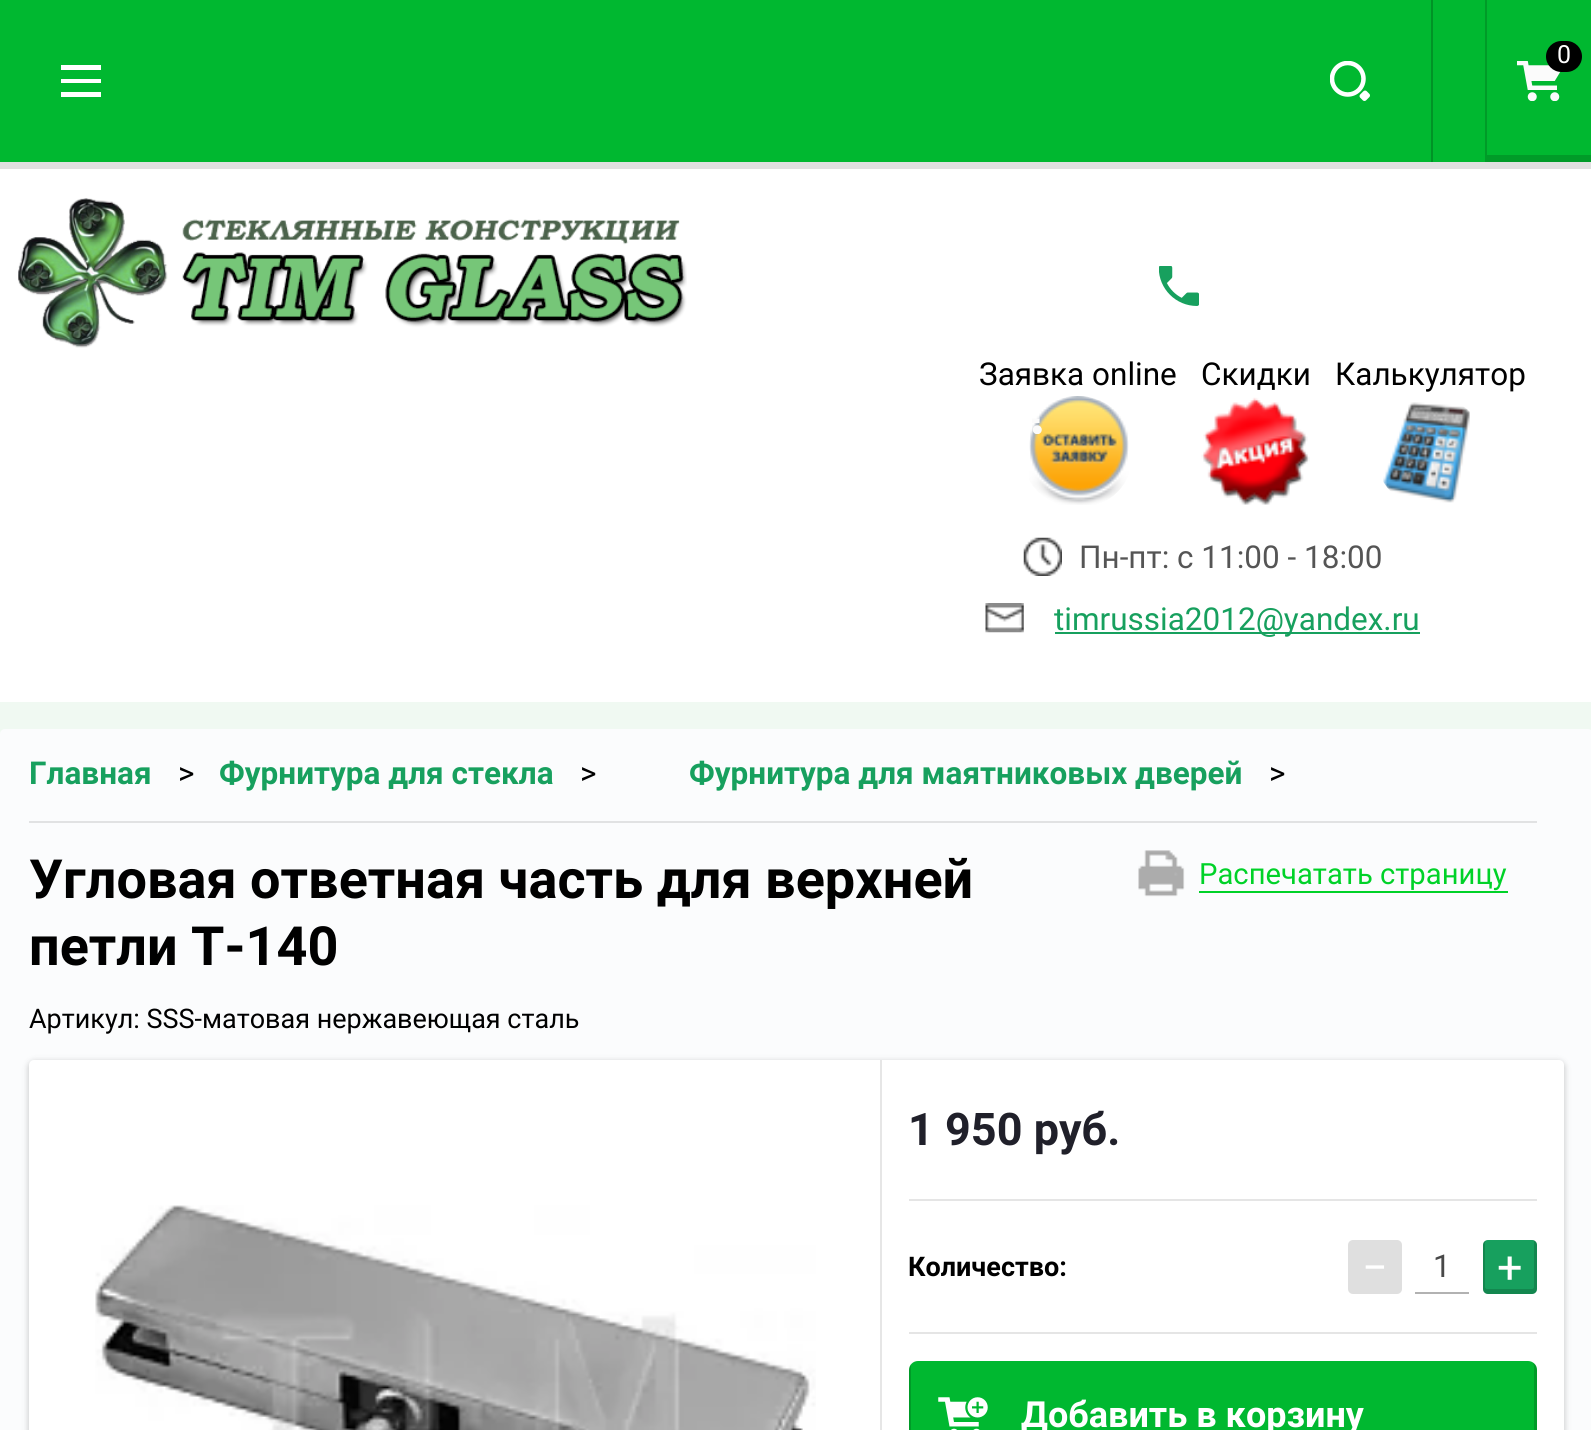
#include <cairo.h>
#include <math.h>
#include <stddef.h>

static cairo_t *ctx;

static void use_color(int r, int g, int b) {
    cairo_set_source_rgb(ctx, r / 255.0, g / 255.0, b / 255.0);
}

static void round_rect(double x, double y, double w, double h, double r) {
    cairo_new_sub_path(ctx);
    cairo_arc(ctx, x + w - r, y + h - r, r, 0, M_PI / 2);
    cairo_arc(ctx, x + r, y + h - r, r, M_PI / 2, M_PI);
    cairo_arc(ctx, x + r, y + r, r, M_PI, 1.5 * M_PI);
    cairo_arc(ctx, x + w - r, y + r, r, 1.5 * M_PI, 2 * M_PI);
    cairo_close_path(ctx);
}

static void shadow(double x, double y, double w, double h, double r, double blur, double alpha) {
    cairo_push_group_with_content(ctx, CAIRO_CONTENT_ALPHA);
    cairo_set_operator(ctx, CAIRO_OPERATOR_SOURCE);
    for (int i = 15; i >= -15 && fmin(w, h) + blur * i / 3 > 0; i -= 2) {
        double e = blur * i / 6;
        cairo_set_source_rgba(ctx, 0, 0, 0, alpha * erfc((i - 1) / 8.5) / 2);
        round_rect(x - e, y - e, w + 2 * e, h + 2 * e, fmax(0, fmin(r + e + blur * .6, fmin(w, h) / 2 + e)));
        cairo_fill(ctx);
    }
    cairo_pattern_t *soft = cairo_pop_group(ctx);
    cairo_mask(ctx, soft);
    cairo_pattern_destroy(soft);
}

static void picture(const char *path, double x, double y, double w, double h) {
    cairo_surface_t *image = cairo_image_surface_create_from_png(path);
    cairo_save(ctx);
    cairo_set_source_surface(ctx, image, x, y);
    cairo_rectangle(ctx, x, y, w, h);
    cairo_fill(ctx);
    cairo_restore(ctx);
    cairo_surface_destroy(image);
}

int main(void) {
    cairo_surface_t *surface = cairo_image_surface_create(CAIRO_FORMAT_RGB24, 1591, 1430);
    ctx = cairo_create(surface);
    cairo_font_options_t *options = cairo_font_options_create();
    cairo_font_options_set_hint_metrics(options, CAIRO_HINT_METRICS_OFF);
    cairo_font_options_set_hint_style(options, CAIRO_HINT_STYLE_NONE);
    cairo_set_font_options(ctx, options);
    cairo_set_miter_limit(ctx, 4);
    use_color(240, 249, 242);
    cairo_paint(ctx);
    use_color(224, 224, 224);
    cairo_rectangle(ctx, 0, 162, 1591, 7);
    cairo_fill(ctx);
    use_color(0, 184, 48);
    cairo_rectangle(ctx, 0, 0, 1591, 162);
    cairo_fill(ctx);
    use_color(0, 147, 38);
    cairo_rectangle(ctx, 1431, 0, 2, 162);
    cairo_fill(ctx);
    picture("img1.png", 1517, 61, 44, 40);
    cairo_save(ctx);
    cairo_rectangle(ctx, 1485, 0, 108, 162);
    cairo_clip(ctx);
    use_color(0, 155, 40);
    cairo_set_fill_rule(ctx, CAIRO_FILL_RULE_EVEN_ODD);
    cairo_new_path(ctx);
    cairo_move_to(ctx, 1262, -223);
    cairo_line_to(ctx, 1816, -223);
    cairo_line_to(ctx, 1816, 385);
    cairo_line_to(ctx, 1262, 385);
    cairo_close_path(ctx);
    cairo_move_to(ctx, 1487, -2);
    cairo_line_to(ctx, 1591, -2);
    cairo_line_to(ctx, 1591, 155);
    cairo_line_to(ctx, 1487, 155);
    cairo_close_path(ctx);
    cairo_fill(ctx);
    cairo_restore(ctx);
    use_color(0, 0, 0);
    round_rect(1546, 41, 36, 31, 15.5);
    cairo_fill(ctx);
    cairo_select_font_face(ctx, "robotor", CAIRO_FONT_SLANT_NORMAL, CAIRO_FONT_WEIGHT_NORMAL);
    cairo_set_font_size(ctx, 25);
    use_color(255, 255, 255);
    cairo_move_to(ctx, 1557, 63);
    cairo_show_text(ctx, "0");
    cairo_set_fill_rule(ctx, CAIRO_FILL_RULE_EVEN_ODD);
    cairo_new_path(ctx);
    cairo_move_to(ctx, 61, 97);
    cairo_line_to(ctx, 61, 92);
    cairo_line_to(ctx, 101, 92);
    cairo_line_to(ctx, 101, 97);
    cairo_close_path(ctx);
    cairo_move_to(ctx, 61, 79);
    cairo_line_to(ctx, 101, 79);
    cairo_line_to(ctx, 101, 83);
    cairo_line_to(ctx, 61, 83);
    cairo_close_path(ctx);
    cairo_move_to(ctx, 61, 65);
    cairo_line_to(ctx, 101, 65);
    cairo_line_to(ctx, 101, 70);
    cairo_line_to(ctx, 61, 70);
    cairo_close_path(ctx);
    cairo_fill(ctx);
    picture("img2.png", 1330, 61, 40, 40);
    cairo_rectangle(ctx, 0, 169, 1591, 533);
    cairo_fill(ctx);
    picture("img3.png", 18, 198, 669, 150);
    picture("img4.png", 1159, 266, 40, 40);
    cairo_set_font_size(ctx, 31.5);
    use_color(0, 0, 0);
    cairo_move_to(ctx, 979, 385);
    cairo_show_text(ctx, "Заявка online");
    picture("img5.png", 1029, 396, 100, 109);
    cairo_move_to(ctx, 1201, 385);
    cairo_show_text(ctx, "Скидки");
    picture("img6.png", 1201, 397, 109, 108);
    cairo_move_to(ctx, 1335, 385);
    cairo_show_text(ctx, "Калькулятор");
    picture("img7.png", 1383, 402, 87, 101);
    picture("img8.png", 1032, 418, 10, 16);
    picture("img9.png", 1023, 537, 39, 39);
    use_color(85, 85, 85);
    cairo_move_to(ctx, 1079, 568);
    cairo_show_text(ctx, "Пн-пт: с 11:00 - 18:00");
    picture("img10.png", 985, 603, 39, 30);
    use_color(23, 160, 94);
    cairo_rectangle(ctx, 1055, 632, 365, 2);
    cairo_fill(ctx);
    cairo_move_to(ctx, 1054, 630);
    cairo_show_text(ctx, "timrussia2012@yandex.ru");
    use_color(251, 252, 253);
    round_rect(0, 729, 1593, 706, 5);
    cairo_fill(ctx);
    use_color(225, 226, 227);
    cairo_rectangle(ctx, 29, 821, 1508, 2);
    cairo_fill(ctx);
    cairo_select_font_face(ctx, "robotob", CAIRO_FONT_SLANT_NORMAL, CAIRO_FONT_WEIGHT_BOLD);
    use_color(23, 160, 94);
    cairo_move_to(ctx, 29, 784);
    cairo_show_text(ctx, "Главная");
    cairo_select_font_face(ctx, "robotor", CAIRO_FONT_SLANT_NORMAL, CAIRO_FONT_WEIGHT_NORMAL);
    use_color(0, 0, 0);
    cairo_move_to(ctx, 178, 784);
    cairo_show_text(ctx, ">");
    cairo_select_font_face(ctx, "robotob", CAIRO_FONT_SLANT_NORMAL, CAIRO_FONT_WEIGHT_BOLD);
    use_color(23, 160, 94);
    cairo_move_to(ctx, 219, 784);
    cairo_show_text(ctx, "Фурнитура для стекла");
    cairo_select_font_face(ctx, "robotor", CAIRO_FONT_SLANT_NORMAL, CAIRO_FONT_WEIGHT_NORMAL);
    use_color(0, 0, 0);
    cairo_move_to(ctx, 580, 784);
    cairo_show_text(ctx, ">");
    cairo_select_font_face(ctx, "robotob", CAIRO_FONT_SLANT_NORMAL, CAIRO_FONT_WEIGHT_BOLD);
    use_color(23, 160, 94);
    cairo_move_to(ctx, 689, 784);
    cairo_show_text(ctx, "Фурнитура для маятниковых дверей");
    cairo_select_font_face(ctx, "robotor", CAIRO_FONT_SLANT_NORMAL, CAIRO_FONT_WEIGHT_NORMAL);
    use_color(0, 0, 0);
    cairo_move_to(ctx, 1269, 784);
    cairo_show_text(ctx, ">");
    cairo_select_font_face(ctx, "robotob", CAIRO_FONT_SLANT_NORMAL, CAIRO_FONT_WEIGHT_BOLD);
    cairo_set_font_size(ctx, 54);
    cairo_move_to(ctx, 29, 898);
    cairo_show_text(ctx, "Угловая ответная часть для верхней");
    cairo_move_to(ctx, 29, 965);
    cairo_show_text(ctx, "петли T-140");
    picture("img11.png", 1138, 850, 47, 47);
    use_color(0, 210, 40);
    cairo_rectangle(ctx, 1199, 891, 309, 2);
    cairo_fill(ctx);
    cairo_select_font_face(ctx, "robotor", CAIRO_FONT_SLANT_NORMAL, CAIRO_FONT_WEIGHT_NORMAL);
    cairo_set_font_size(ctx, 29.25);
    cairo_move_to(ctx, 1199, 884);
    cairo_show_text(ctx, "Распечатать страницу");
    cairo_set_font_size(ctx, 27);
    use_color(0, 0, 0);
    cairo_move_to(ctx, 29, 1028);
    cairo_show_text(ctx, "Артикул: SSS-матовая нержавеющая сталь");
    use_color(0, 0, 0);
    shadow(29, 1062, 1535, 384, 5, 3.5, 0.24);
    use_color(255, 255, 255);
    round_rect(29, 1060, 1535, 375, 5);
    cairo_fill(ctx);
    picture("img12.png", 95, 1205, 721, 225);
    use_color(230, 230, 230);
    cairo_rectangle(ctx, 880, 1060, 2, 370);
    cairo_fill(ctx);
    cairo_select_font_face(ctx, "robotob", CAIRO_FONT_SLANT_NORMAL, CAIRO_FONT_WEIGHT_BOLD);
    cairo_set_font_size(ctx, 45);
    use_color(32, 32, 42);
    cairo_move_to(ctx, 908, 1145);
    cairo_show_text(ctx, "1 950 руб.");
    use_color(229, 229, 229);
    cairo_rectangle(ctx, 909, 1199, 628, 2);
    cairo_fill(ctx);
    cairo_rectangle(ctx, 909, 1332, 628, 2);
    cairo_fill(ctx);
    cairo_set_font_size(ctx, 27);
    use_color(0, 0, 0);
    cairo_move_to(ctx, 908, 1276);
    cairo_show_text(ctx, "Количество:");
    use_color(223, 223, 223);
    round_rect(1348, 1240, 54, 54, 5);
    cairo_fill(ctx);
    cairo_select_font_face(ctx, "robotor", CAIRO_FONT_SLANT_NORMAL, CAIRO_FONT_WEIGHT_NORMAL);
    cairo_set_font_size(ctx, 45);
    use_color(255, 255, 255);
    cairo_move_to(ctx, 1362, 1283);
    cairo_show_text(ctx, "−");
    use_color(178, 178, 178);
    cairo_rectangle(ctx, 1415, 1292, 54, 2);
    cairo_fill(ctx);
    cairo_set_font_size(ctx, 31.5);
    use_color(72, 72, 72);
    cairo_move_to(ctx, 1433, 1277);
    cairo_show_text(ctx, "1");
    use_color(23, 160, 94);
    round_rect(1483, 1240, 54, 54, 5);
    cairo_fill(ctx);
    cairo_set_source_rgba(ctx, 0, 0, 0, 0.16);
    cairo_set_fill_rule(ctx, CAIRO_FILL_RULE_WINDING);
    cairo_new_path(ctx);
    cairo_move_to(ctx, 1537, 1245);
    cairo_curve_to(ctx, 1537, 1242, 1535, 1240, 1532, 1240);
    cairo_curve_to(ctx, 1533, 1240, 1534, 1241, 1534, 1242);
    cairo_line_to(ctx, 1534, 1287);
    cairo_curve_to(ctx, 1534, 1288, 1533, 1289, 1532, 1289);
    cairo_line_to(ctx, 1487, 1289);
    cairo_curve_to(ctx, 1486, 1289, 1485, 1288, 1485, 1287);
    cairo_line_to(ctx, 1485, 1242);
    cairo_line_to(ctx, 1486, 1241);
    cairo_curve_to(ctx, 1484, 1241, 1483, 1243, 1483, 1245);
    cairo_line_to(ctx, 1483, 1289);
    cairo_curve_to(ctx, 1483, 1292, 1485, 1294, 1488, 1294);
    cairo_line_to(ctx, 1532, 1294);
    cairo_curve_to(ctx, 1535, 1294, 1537, 1292, 1537, 1289);
    cairo_close_path(ctx);
    cairo_fill(ctx);
    cairo_set_font_size(ctx, 45);
    use_color(255, 255, 255);
    cairo_move_to(ctx, 1497, 1283);
    cairo_show_text(ctx, "+");
    use_color(0, 184, 48);
    round_rect(909, 1361, 628, 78, 9);
    cairo_fill(ctx);
    cairo_set_source_rgba(ctx, 0, 0, 0, 0.16);
    cairo_new_path(ctx);
    cairo_move_to(ctx, 911, 1364);
    cairo_curve_to(ctx, 910, 1366, 909, 1368, 909, 1370);
    cairo_line_to(ctx, 909, 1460);
    cairo_curve_to(ctx, 909, 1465, 913, 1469, 918, 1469);
    cairo_line_to(ctx, 1528, 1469);
    cairo_curve_to(ctx, 1533, 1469, 1537, 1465, 1537, 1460);
    cairo_line_to(ctx, 1537, 1370);
    cairo_curve_to(ctx, 1537, 1367, 1536, 1364, 1533, 1363);
    cairo_line_to(ctx, 1534, 1366);
    cairo_line_to(ctx, 1534, 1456);
    cairo_curve_to(ctx, 1534, 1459, 1531, 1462, 1528, 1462);
    cairo_line_to(ctx, 918, 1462);
    cairo_curve_to(ctx, 914, 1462, 911, 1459, 911, 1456);
    cairo_close_path(ctx);
    cairo_fill(ctx);
    picture("img13.png", 938, 1397, 50, 33);
    cairo_select_font_face(ctx, "robotob", CAIRO_FONT_SLANT_NORMAL, CAIRO_FONT_WEIGHT_BOLD);
    cairo_set_font_size(ctx, 36);
    use_color(255, 255, 255);
    cairo_move_to(ctx, 1021, 1427);
    cairo_show_text(ctx, "Добавить в корзину");
    cairo_surface_write_to_png(surface, "result.png");
    cairo_font_options_destroy(options);
    cairo_destroy(ctx);
    cairo_surface_destroy(surface);
    return 0;
}
